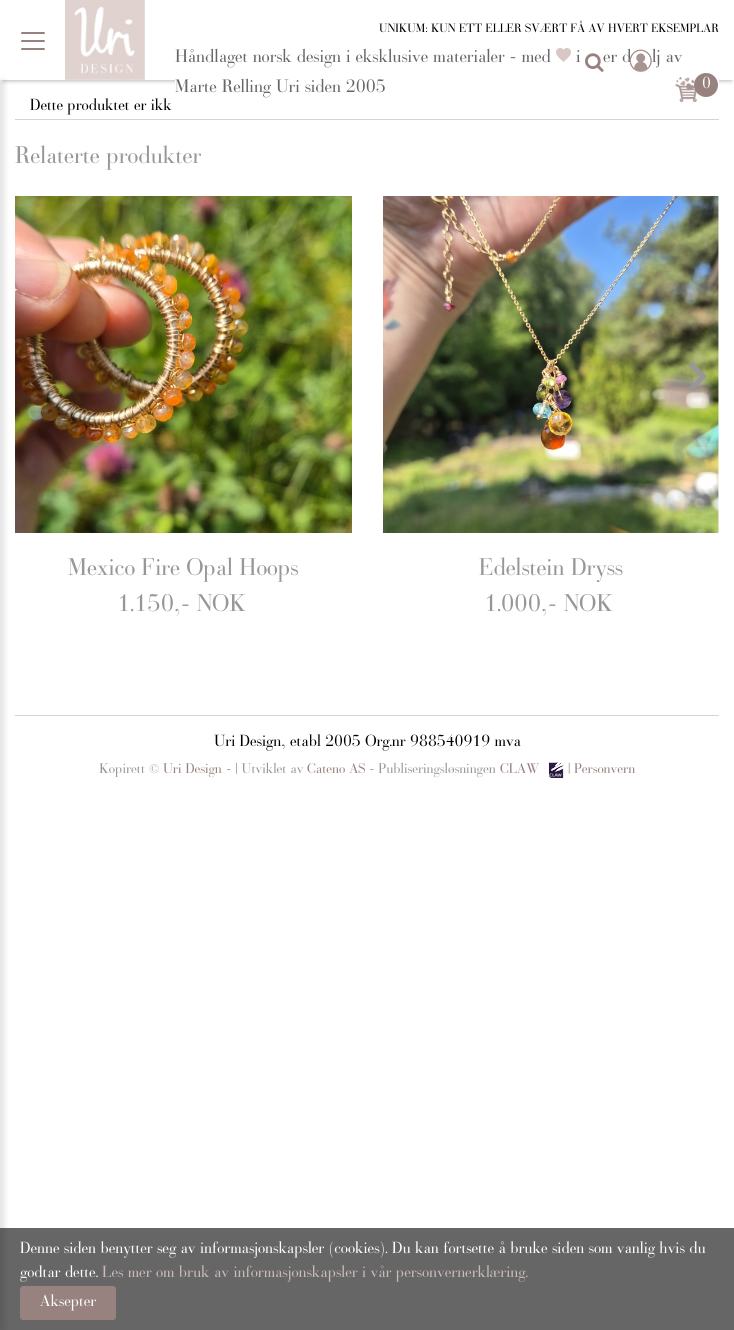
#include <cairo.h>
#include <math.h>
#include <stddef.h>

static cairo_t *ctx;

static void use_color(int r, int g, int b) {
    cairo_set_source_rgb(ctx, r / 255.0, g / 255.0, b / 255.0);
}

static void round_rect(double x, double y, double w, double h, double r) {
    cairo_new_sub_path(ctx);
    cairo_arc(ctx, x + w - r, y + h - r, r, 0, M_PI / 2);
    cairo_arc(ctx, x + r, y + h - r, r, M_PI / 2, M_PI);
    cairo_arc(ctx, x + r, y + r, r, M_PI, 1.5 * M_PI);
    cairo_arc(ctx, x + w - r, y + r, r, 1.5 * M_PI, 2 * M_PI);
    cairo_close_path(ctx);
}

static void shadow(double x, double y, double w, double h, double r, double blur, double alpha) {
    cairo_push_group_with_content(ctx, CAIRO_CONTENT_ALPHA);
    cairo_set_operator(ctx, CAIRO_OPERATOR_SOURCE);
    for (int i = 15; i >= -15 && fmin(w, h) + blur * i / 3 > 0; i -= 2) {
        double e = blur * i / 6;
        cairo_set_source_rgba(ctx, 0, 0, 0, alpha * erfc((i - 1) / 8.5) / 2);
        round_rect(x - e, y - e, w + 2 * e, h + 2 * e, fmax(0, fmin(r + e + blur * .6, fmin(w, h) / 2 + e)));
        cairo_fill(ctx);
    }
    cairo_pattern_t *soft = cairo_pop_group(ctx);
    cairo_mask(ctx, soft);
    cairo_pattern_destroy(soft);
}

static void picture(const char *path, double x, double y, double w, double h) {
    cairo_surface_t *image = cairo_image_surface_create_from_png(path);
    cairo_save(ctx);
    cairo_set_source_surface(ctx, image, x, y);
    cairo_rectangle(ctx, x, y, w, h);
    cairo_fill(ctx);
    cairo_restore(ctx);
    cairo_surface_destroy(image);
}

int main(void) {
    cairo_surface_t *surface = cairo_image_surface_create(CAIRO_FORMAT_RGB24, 734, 1330);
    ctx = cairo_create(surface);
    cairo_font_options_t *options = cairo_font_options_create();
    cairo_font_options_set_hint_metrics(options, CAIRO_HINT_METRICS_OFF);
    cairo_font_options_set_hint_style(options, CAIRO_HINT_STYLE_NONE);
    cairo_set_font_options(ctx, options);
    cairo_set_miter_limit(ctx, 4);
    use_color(255, 255, 255);
    cairo_paint(ctx);
    cairo_save(ctx);
    cairo_rectangle(ctx, 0, 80, 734, 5);
    cairo_clip(ctx);
    use_color(153, 153, 153);
    shadow(3, 6, 728, 74, 0, 2.5, 1);
    cairo_restore(ctx);
    use_color(151, 130, 127);
    round_rect(21, 40, 24, 2, 1);
    cairo_fill(ctx);
    round_rect(21, 32, 24, 2, 1);
    cairo_fill(ctx);
    round_rect(21, 48, 24, 2, 1);
    cairo_fill(ctx);
    picture("img1.png", 65, 0, 80, 80);
    use_color(255, 255, 255);
    cairo_rectangle(ctx, 175, 80, 544, 5);
    cairo_fill(ctx);
    cairo_select_font_face(ctx, "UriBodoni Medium", CAIRO_FONT_SLANT_NORMAL, CAIRO_FONT_WEIGHT_NORMAL);
    cairo_set_font_size(ctx, 12);
    use_color(0, 0, 0);
    cairo_move_to(ctx, 379, 32);
    cairo_show_text(ctx, "UNIKUM: KUN ETT ELLER SVÆRT FÅ AV HVERT EKSEMPLAR");
    cairo_set_font_size(ctx, 18);
    use_color(102, 102, 102);
    cairo_move_to(ctx, 175, 62);
    cairo_show_text(ctx, "Håndlaget norsk design i eksklusive materialer - med");
    picture("img2.png", 556, 48, 15, 14);
    cairo_move_to(ctx, 576, 62);
    cairo_show_text(ctx, "i");
    cairo_move_to(ctx, 603, 62);
    cairo_show_text(ctx, "er d");
    cairo_move_to(ctx, 652, 62);
    cairo_show_text(ctx, "lj av");
    cairo_move_to(ctx, 175, 92);
    cairo_show_text(ctx, "Marte Relling Uri siden 2005");
    picture("img3.png", 585, 53, 19, 19);
    picture("img4.png", 629, 49, 23, 23);
    picture("img5.png", 675, 77, 23, 25);
    use_color(151, 130, 127);
    cairo_arc(ctx, 706, 85, 12, 0, 2 * M_PI);
    cairo_fill(ctx);
    cairo_set_font_size(ctx, 16);
    use_color(255, 255, 255);
    cairo_move_to(ctx, 702, 88);
    cairo_show_text(ctx, "0");
    use_color(0, 0, 0);
    shadow(-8, 80, 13, 1250, 0, 2.5, 0.1);
    use_color(0, 0, 0);
    cairo_move_to(ctx, 30, 110);
    cairo_show_text(ctx, "Dette produktet er ikk");
    use_color(213, 213, 213);
    cairo_rectangle(ctx, 15, 119, 704, 1);
    cairo_fill(ctx);
    cairo_set_font_size(ctx, 24);
    use_color(151, 151, 151);
    cairo_move_to(ctx, 15, 163);
    cairo_show_text(ctx, "Relaterte produkter");
    picture("img7.png", 382, 196, 337, 337);
    cairo_new_path(ctx);
    cairo_move_to(ctx, 688.5, 388);
    cairo_line_to(ctx, 700, 376.5);
    cairo_line_to(ctx, 688.5, 365);
    cairo_line_to(ctx, 692, 361.5);
    cairo_line_to(ctx, 707, 376.5);
    cairo_line_to(ctx, 692, 391.5);
    cairo_close_path(ctx);
    cairo_fill(ctx);
    picture("img6.png", 15, 196, 337, 337);
    cairo_move_to(ctx, 68, 575);
    cairo_show_text(ctx, "Mexico Fire Opal Hoops");
    cairo_move_to(ctx, 117, 611);
    cairo_show_text(ctx, "1.150,- NOK");
    cairo_move_to(ctx, 479, 575);
    cairo_show_text(ctx, "Edelstein Dryss");
    cairo_move_to(ctx, 484, 611);
    cairo_show_text(ctx, "1.000,- NOK");
    use_color(213, 213, 213);
    cairo_rectangle(ctx, 15, 715, 704, 1);
    cairo_fill(ctx);
    cairo_set_font_size(ctx, 16);
    use_color(0, 0, 0);
    cairo_move_to(ctx, 214, 746);
    cairo_show_text(ctx, "Uri Design, etabl 2005 Org.nr 988540919 mva");
    cairo_set_font_size(ctx, 14);
    use_color(151, 151, 151);
    cairo_move_to(ctx, 99, 773);
    cairo_show_text(ctx, "Kopirett ©");
    use_color(151, 130, 127);
    cairo_move_to(ctx, 163, 773);
    cairo_show_text(ctx, "Uri Design");
    use_color(151, 151, 151);
    cairo_move_to(ctx, 226, 773);
    cairo_show_text(ctx, "- | Utviklet av");
    use_color(151, 130, 127);
    cairo_move_to(ctx, 307, 773);
    cairo_show_text(ctx, "Cateno AS");
    use_color(151, 151, 151);
    cairo_move_to(ctx, 369, 773);
    cairo_show_text(ctx, "- Publiseringsløsningen");
    use_color(151, 130, 127);
    cairo_move_to(ctx, 500, 773);
    cairo_show_text(ctx, "CLAW");
    picture("img8.png", 548, 762, 16, 17);
    use_color(151, 151, 151);
    cairo_move_to(ctx, 568, 773);
    cairo_show_text(ctx, "|");
    use_color(151, 130, 127);
    cairo_move_to(ctx, 574, 773);
    cairo_show_text(ctx, "Personvern");
    cairo_set_source_rgba(ctx, 0, 0, 0, 0.6);
    cairo_rectangle(ctx, 0, 1228, 734, 102);
    cairo_fill(ctx);
    cairo_set_font_size(ctx, 16);
    use_color(255, 255, 255);
    cairo_move_to(ctx, 20, 1253);
    cairo_show_text(ctx, "Denne siden benytter seg av informasjonskapsler (cookies). Du kan fortsette å bruke siden som vanlig hvis du");
    cairo_move_to(ctx, 20, 1277);
    cairo_show_text(ctx, "godtar dette.");
    use_color(204, 187, 185);
    cairo_move_to(ctx, 102, 1277);
    cairo_show_text(ctx, "Les mer om bruk av informasjonskapsler i vår personvernerklæring.");
    use_color(151, 130, 127);
    round_rect(20, 1286, 96, 34, 3);
    cairo_fill(ctx);
    use_color(255, 255, 255);
    cairo_move_to(ctx, 40, 1306);
    cairo_show_text(ctx, "Aksepter");
    cairo_surface_write_to_png(surface, "result.png");
    cairo_font_options_destroy(options);
    cairo_destroy(ctx);
    cairo_surface_destroy(surface);
    return 0;
}
